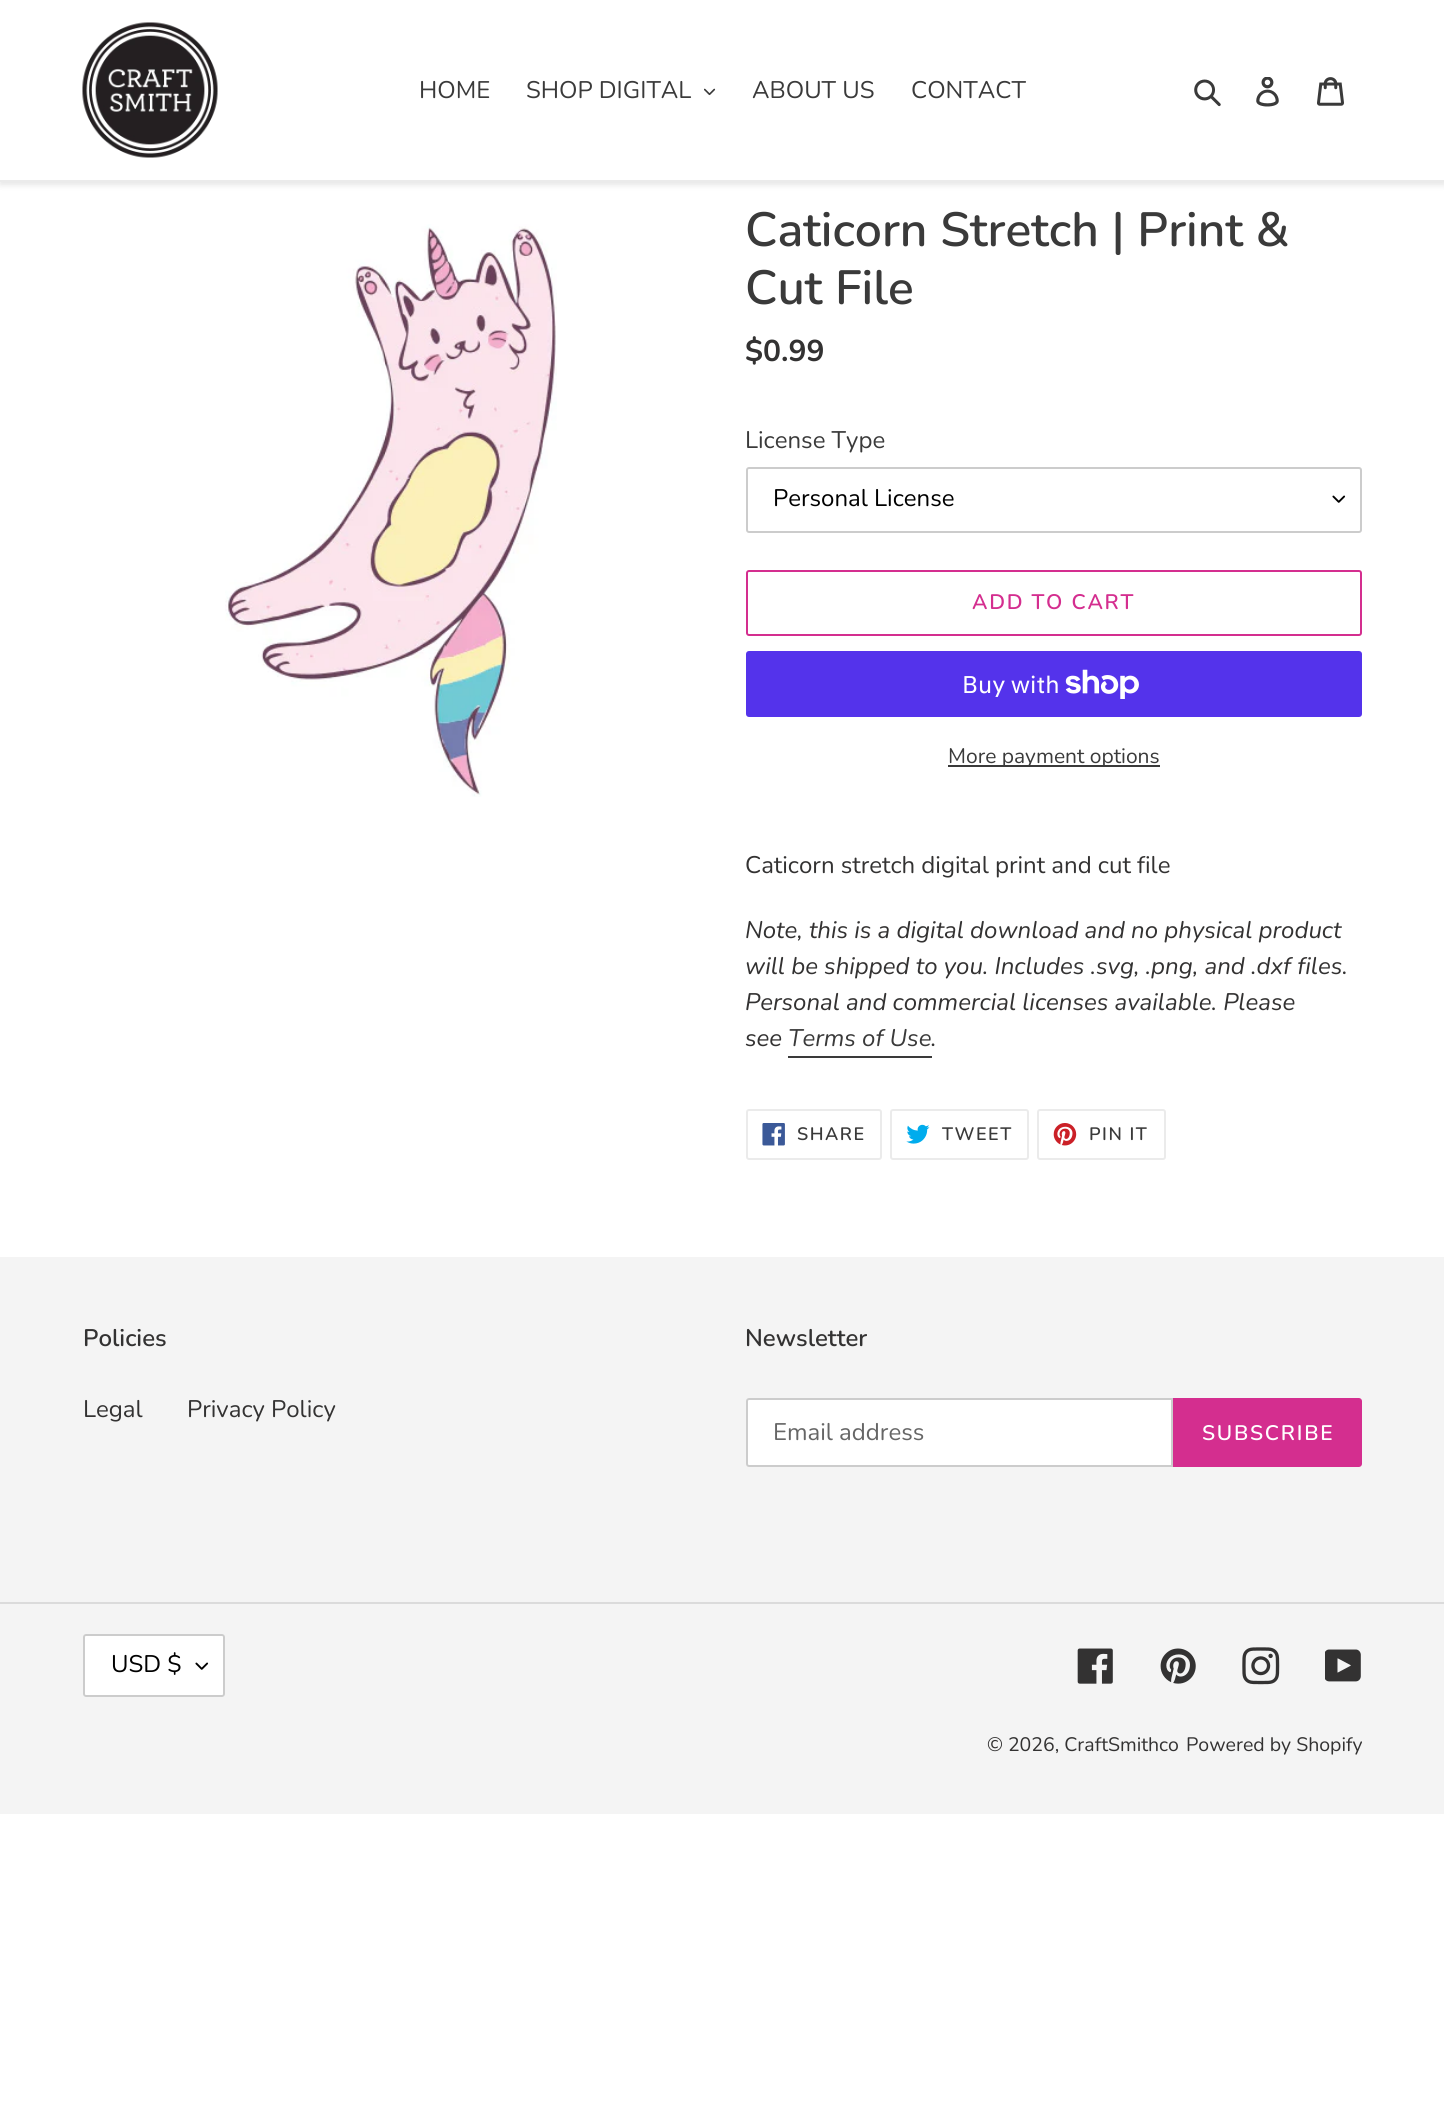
#include <cairo.h>
#include <math.h>
#include <stddef.h>

static cairo_t *ctx;

static void use_color(int r, int g, int b) {
    cairo_set_source_rgb(ctx, r / 255.0, g / 255.0, b / 255.0);
}

static void spaced_text(double x, double y, const char *s, double letter, double word) {
    cairo_move_to(ctx, x, y);
    while (*s) {
        char ch[5] = {0};
        int n = 0;
        do ch[n++] = *s++; while ((*s & 0xC0) == 0x80);
        cairo_show_text(ctx, ch);
        cairo_rel_move_to(ctx, letter + word * (*ch == ' '), 0);
    }
}

static void round_rect(double x, double y, double w, double h, double r) {
    cairo_new_sub_path(ctx);
    cairo_arc(ctx, x + w - r, y + h - r, r, 0, M_PI / 2);
    cairo_arc(ctx, x + r, y + h - r, r, M_PI / 2, M_PI);
    cairo_arc(ctx, x + r, y + r, r, M_PI, 1.5 * M_PI);
    cairo_arc(ctx, x + w - r, y + r, r, 1.5 * M_PI, 2 * M_PI);
    cairo_close_path(ctx);
}

static void shadow(double x, double y, double w, double h, double r, double blur, double alpha) {
    cairo_push_group_with_content(ctx, CAIRO_CONTENT_ALPHA);
    cairo_set_operator(ctx, CAIRO_OPERATOR_SOURCE);
    for (int i = 15; i >= -15 && fmin(w, h) + blur * i / 3 > 0; i -= 2) {
        double e = blur * i / 6;
        cairo_set_source_rgba(ctx, 0, 0, 0, alpha * erfc((i - 1) / 8.5) / 2);
        round_rect(x - e, y - e, w + 2 * e, h + 2 * e, fmax(0, fmin(r + e + blur * .6, fmin(w, h) / 2 + e)));
        cairo_fill(ctx);
    }
    cairo_pattern_t *soft = cairo_pop_group(ctx);
    cairo_mask(ctx, soft);
    cairo_pattern_destroy(soft);
}

static void picture(const char *path, double x, double y, double w, double h) {
    cairo_surface_t *image = cairo_image_surface_create_from_png(path);
    cairo_save(ctx);
    cairo_set_source_surface(ctx, image, x, y);
    cairo_rectangle(ctx, x, y, w, h);
    cairo_fill(ctx);
    cairo_restore(ctx);
    cairo_surface_destroy(image);
}

int main(void) {
    cairo_surface_t *surface = cairo_image_surface_create(CAIRO_FORMAT_RGB24, 1444, 2109);
    ctx = cairo_create(surface);
    cairo_font_options_t *options = cairo_font_options_create();
    cairo_font_options_set_hint_metrics(options, CAIRO_HINT_METRICS_OFF);
    cairo_font_options_set_hint_style(options, CAIRO_HINT_STYLE_NONE);
    cairo_set_font_options(ctx, options);
    cairo_set_miter_limit(ctx, 4);
    use_color(255, 255, 255);
    cairo_paint(ctx);
    use_color(0, 0, 0);
    shadow(0, 3, 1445, 182, 0, 3, 0.1);
    use_color(255, 255, 255);
    cairo_rectangle(ctx, 0, 0, 1444, 180);
    cairo_fill(ctx);
    use_color(235, 235, 235);
    cairo_rectangle(ctx, 0, 180, 1444, 2);
    cairo_fill(ctx);
    picture("img1.png", 82, 22, 136, 136);
    cairo_select_font_face(ctx, "Nunito", CAIRO_FONT_SLANT_NORMAL, CAIRO_FONT_WEIGHT_NORMAL);
    cairo_set_font_size(ctx, 24);
    use_color(58, 58, 58);
    cairo_move_to(ctx, 419, 98);
    cairo_show_text(ctx, "HOME");
    cairo_move_to(ctx, 526, 98);
    cairo_show_text(ctx, "SHOP DIGITAL");
    picture("img2.png", 704, 88, 12, 8);
    cairo_move_to(ctx, 752, 98);
    cairo_show_text(ctx, "ABOUT US");
    cairo_move_to(ctx, 911, 98);
    cairo_show_text(ctx, "CONTACT");
    picture("img3.png", 1194, 79, 27, 28);
    picture("img4.png", 1256, 77, 23, 30);
    picture("img5.png", 1317, 77, 27, 29);
    picture("img6.png", 225, 224, 332, 573);
    cairo_select_font_face(ctx, "Nunito SemiBold", CAIRO_FONT_SLANT_NORMAL, CAIRO_FONT_WEIGHT_NORMAL);
    cairo_set_font_size(ctx, 48);
    cairo_move_to(ctx, 745, 246);
    cairo_show_text(ctx, "Caticorn Stretch | Print &");
    cairo_move_to(ctx, 745, 304);
    cairo_show_text(ctx, "Cut File");
    cairo_select_font_face(ctx, "Nunito", CAIRO_FONT_SLANT_NORMAL, CAIRO_FONT_WEIGHT_BOLD);
    cairo_set_font_size(ctx, 30);
    use_color(51, 50, 50);
    cairo_move_to(ctx, 745, 361);
    cairo_show_text(ctx, "$0.99");
    cairo_select_font_face(ctx, "Nunito", CAIRO_FONT_SLANT_NORMAL, CAIRO_FONT_WEIGHT_NORMAL);
    cairo_set_font_size(ctx, 24);
    use_color(58, 58, 58);
    cairo_move_to(ctx, 745, 448);
    cairo_show_text(ctx, "License Type");
    picture("img7.png", 1332, 495, 14, 8);
    round_rect(747, 468, 614, 64, 2);
    use_color(204, 204, 204);
    cairo_stroke(ctx);
    use_color(0, 0, 0);
    cairo_move_to(ctx, 773, 506);
    cairo_show_text(ctx, "Personal License");
    round_rect(747, 571, 614, 64, 2);
    use_color(212, 46, 143);
    cairo_stroke(ctx);
    cairo_select_font_face(ctx, "Nunito SemiBold", CAIRO_FONT_SLANT_NORMAL, CAIRO_FONT_WEIGHT_NORMAL);
    cairo_set_font_size(ctx, 21);
    spaced_text(972, 609, "ADD TO CART", 1.75, 0);
    use_color(84, 51, 235);
    round_rect(746, 651, 616, 66, 3);
    cairo_fill(ctx);
    cairo_select_font_face(ctx, "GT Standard", CAIRO_FONT_SLANT_NORMAL, CAIRO_FONT_WEIGHT_NORMAL);
    cairo_set_font_size(ctx, 24);
    use_color(255, 255, 255);
    cairo_move_to(ctx, 962, 693);
    cairo_show_text(ctx, "Buy with");
    picture("img8.png", 1065, 669, 74, 30);
    use_color(58, 58, 58);
    cairo_rectangle(ctx, 948, 765, 212, 2);
    cairo_fill(ctx);
    cairo_select_font_face(ctx, "Nunito", CAIRO_FONT_SLANT_NORMAL, CAIRO_FONT_WEIGHT_NORMAL);
    cairo_set_font_size(ctx, 21);
    cairo_move_to(ctx, 948, 763);
    cairo_show_text(ctx, "More payment options");
    cairo_set_font_size(ctx, 24);
    use_color(51, 50, 50);
    cairo_move_to(ctx, 745, 873);
    cairo_show_text(ctx, "Caticorn stretch digital print and cut file");
    cairo_select_font_face(ctx, "Nunito", CAIRO_FONT_SLANT_ITALIC, CAIRO_FONT_WEIGHT_NORMAL);
    cairo_move_to(ctx, 745, 938);
    cairo_show_text(ctx, "Note, this is a digital download and no physical product");
    cairo_move_to(ctx, 745, 974);
    cairo_show_text(ctx, "will be shipped to you. Includes .svg, .png, and .dxf files.");
    cairo_move_to(ctx, 745, 1010);
    cairo_show_text(ctx, "Personal and commercial licenses available. Please");
    cairo_move_to(ctx, 745, 1046);
    cairo_show_text(ctx, "see");
    use_color(58, 58, 58);
    cairo_move_to(ctx, 788, 1046);
    cairo_show_text(ctx, "Terms of Use");
    use_color(51, 50, 50);
    cairo_move_to(ctx, 931, 1046);
    cairo_show_text(ctx, ".");
    use_color(58, 58, 58);
    cairo_rectangle(ctx, 788, 1056, 144, 2);
    cairo_fill(ctx);
    round_rect(747, 1110, 134, 49, 2);
    use_color(235, 235, 235);
    cairo_stroke(ctx);
    picture("img9.png", 762, 1123, 23, 23);
    cairo_select_font_face(ctx, "Nunito SemiBold", CAIRO_FONT_SLANT_NORMAL, CAIRO_FONT_WEIGHT_NORMAL);
    cairo_set_font_size(ctx, 18);
    use_color(58, 58, 58);
    spaced_text(797, 1140, "SHARE", 1.5, 0);
    round_rect(891, 1110, 137, 49, 2);
    use_color(235, 235, 235);
    cairo_stroke(ctx);
    picture("img10.png", 906, 1124, 24, 20);
    use_color(58, 58, 58);
    spaced_text(942, 1140, "TWEET", 1.5, 0);
    round_rect(1038, 1110, 127, 49, 2);
    use_color(235, 235, 235);
    cairo_stroke(ctx);
    picture("img11.png", 1053, 1123, 24, 23);
    use_color(58, 58, 58);
    spaced_text(1089, 1140, "PIN IT", 1.5, 0);
    use_color(244, 244, 244);
    cairo_rectangle(ctx, 0, 1257, 1444, 557);
    cairo_fill(ctx);
    cairo_set_font_size(ctx, 24);
    use_color(51, 50, 50);
    cairo_move_to(ctx, 83, 1346);
    cairo_show_text(ctx, "Policies");
    cairo_select_font_face(ctx, "Nunito", CAIRO_FONT_SLANT_NORMAL, CAIRO_FONT_WEIGHT_NORMAL);
    cairo_move_to(ctx, 83, 1417);
    cairo_show_text(ctx, "Legal");
    cairo_move_to(ctx, 187, 1417);
    cairo_show_text(ctx, "Privacy Policy");
    cairo_select_font_face(ctx, "Nunito SemiBold", CAIRO_FONT_SLANT_NORMAL, CAIRO_FONT_WEIGHT_NORMAL);
    cairo_move_to(ctx, 745, 1346);
    cairo_show_text(ctx, "Newsletter");
    use_color(255, 255, 255);
    cairo_new_path(ctx);
    cairo_move_to(ctx, 749, 1399);
    cairo_line_to(ctx, 1172, 1399);
    cairo_line_to(ctx, 1172, 1466);
    cairo_line_to(ctx, 749, 1466);
    cairo_curve_to(ctx, 748, 1466, 747, 1465, 747, 1464);
    cairo_line_to(ctx, 747, 1401);
    cairo_curve_to(ctx, 747, 1400, 748, 1399, 749, 1399);
    cairo_close_path(ctx);
    cairo_fill_preserve(ctx);
    use_color(204, 204, 204);
    cairo_stroke(ctx);
    cairo_select_font_face(ctx, "Nunito", CAIRO_FONT_SLANT_NORMAL, CAIRO_FONT_WEIGHT_NORMAL);
    use_color(102, 102, 102);
    cairo_move_to(ctx, 773, 1440);
    cairo_show_text(ctx, "Email address");
    use_color(212, 46, 143);
    cairo_new_path(ctx);
    cairo_move_to(ctx, 1173, 1398);
    cairo_line_to(ctx, 1359, 1398);
    cairo_curve_to(ctx, 1360.5, 1398, 1362, 1399.5, 1362, 1401);
    cairo_line_to(ctx, 1362, 1464);
    cairo_curve_to(ctx, 1362, 1465.5, 1360.5, 1467, 1359, 1467);
    cairo_line_to(ctx, 1173, 1467);
    cairo_close_path(ctx);
    cairo_fill(ctx);
    cairo_select_font_face(ctx, "Nunito SemiBold", CAIRO_FONT_SLANT_NORMAL, CAIRO_FONT_WEIGHT_NORMAL);
    cairo_set_font_size(ctx, 21);
    use_color(255, 255, 255);
    spaced_text(1202, 1440, "SUBSCRIBE", 1.75, 0);
    use_color(219, 219, 219);
    cairo_rectangle(ctx, 0, 1602, 1444, 2);
    cairo_fill(ctx);
    use_color(255, 255, 255);
    round_rect(83, 1634, 142, 63, 3);
    cairo_fill(ctx);
    picture("img7.png", 195, 1662, 14, 8);
    round_rect(84, 1635, 140, 61, 2);
    use_color(204, 204, 204);
    cairo_stroke(ctx);
    cairo_select_font_face(ctx, "Nunito", CAIRO_FONT_SLANT_NORMAL, CAIRO_FONT_WEIGHT_NORMAL);
    cairo_set_font_size(ctx, 24);
    use_color(0, 0, 0);
    cairo_move_to(ctx, 111, 1672);
    cairo_show_text(ctx, "USD $");
    picture("img12.png", 1077, 1648, 36, 36);
    picture("img13.png", 1160, 1648, 36, 36);
    picture("img14.png", 1242, 1647, 38, 38);
    picture("img15.png", 1325, 1649, 36, 33);
    cairo_set_font_size(ctx, 19.5);
    use_color(51, 50, 50);
    cairo_move_to(ctx, 987, 1751);
    cairo_show_text(ctx, "© 2026, CraftSmithco");
    cairo_move_to(ctx, 1186, 1751);
    cairo_show_text(ctx, "Powered by Shopify");
    cairo_surface_write_to_png(surface, "result.png");
    cairo_font_options_destroy(options);
    cairo_destroy(ctx);
    cairo_surface_destroy(surface);
    return 0;
}
